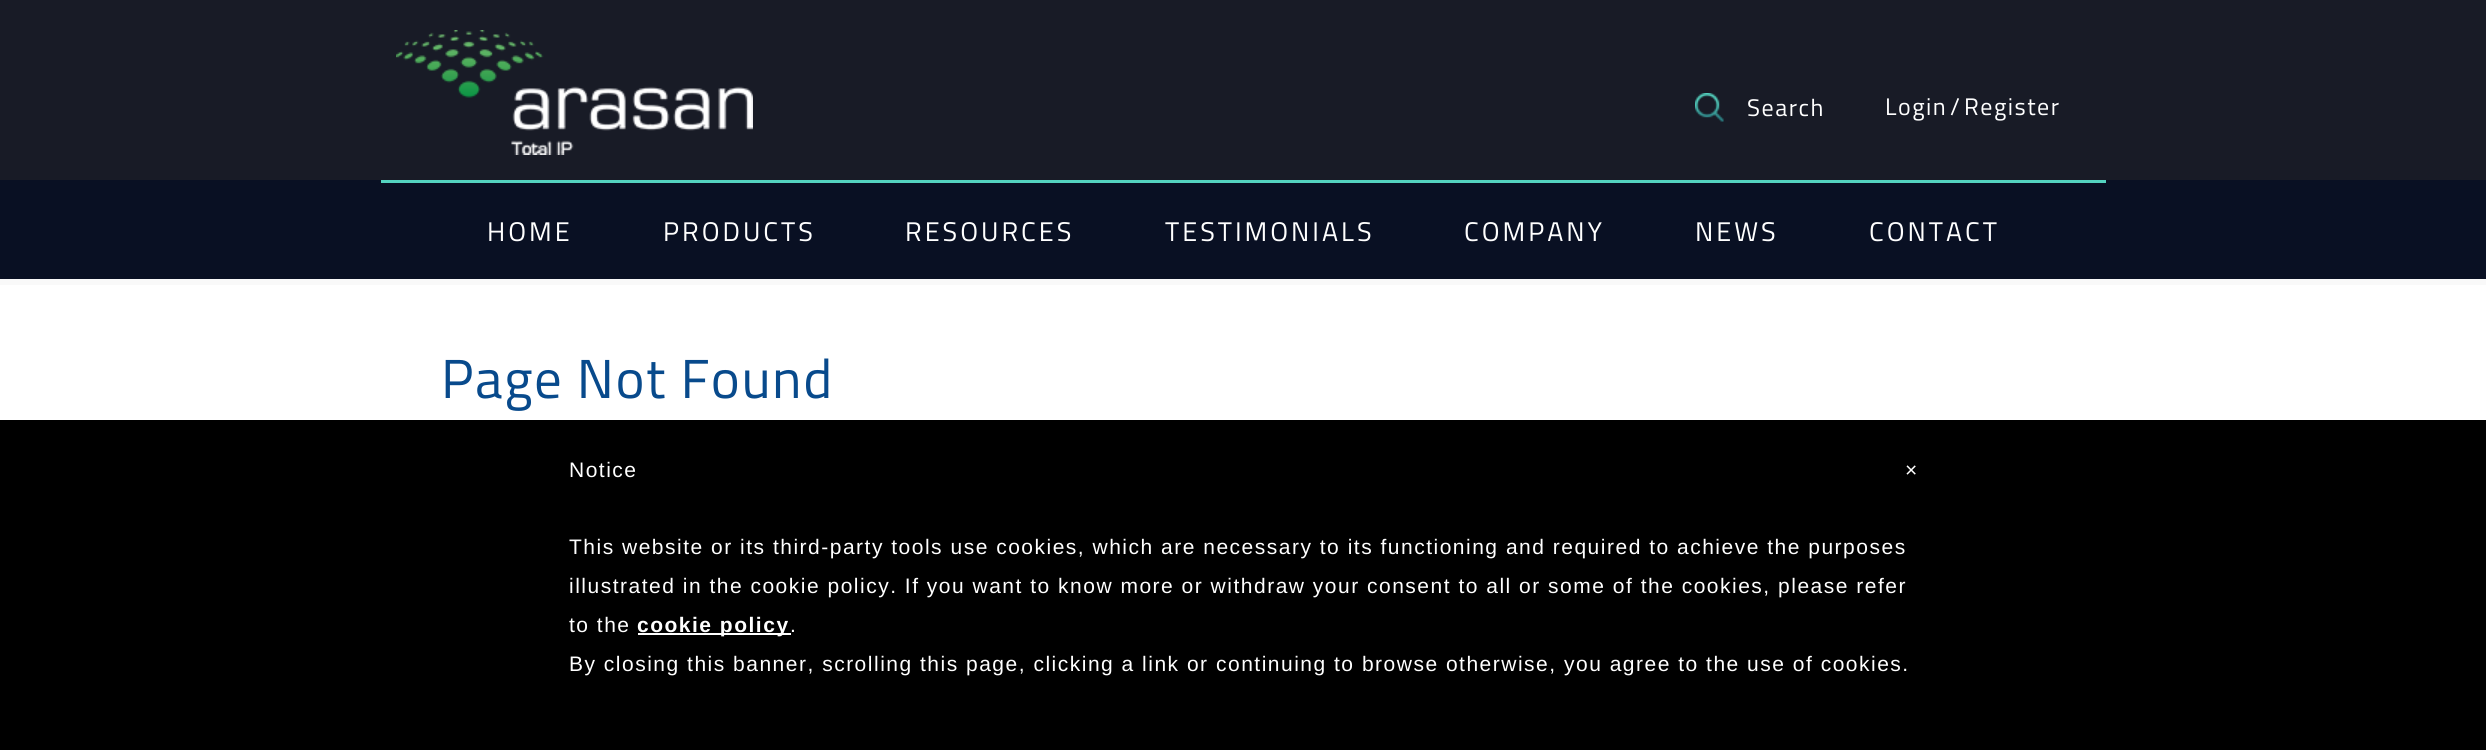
#include <cairo.h>
#include <math.h>
#include <stddef.h>

static cairo_t *ctx;

static void use_color(int r, int g, int b) {
    cairo_set_source_rgb(ctx, r / 255.0, g / 255.0, b / 255.0);
}

static void spaced_text(double x, double y, const char *s, double letter, double word) {
    cairo_move_to(ctx, x, y);
    while (*s) {
        char ch[5] = {0};
        int n = 0;
        do ch[n++] = *s++; while ((*s & 0xC0) == 0x80);
        cairo_show_text(ctx, ch);
        cairo_rel_move_to(ctx, letter + word * (*ch == ' '), 0);
    }
}

static void picture(const char *path, double x, double y, double w, double h) {
    cairo_surface_t *image = cairo_image_surface_create_from_png(path);
    cairo_save(ctx);
    cairo_set_source_surface(ctx, image, x, y);
    cairo_rectangle(ctx, x, y, w, h);
    cairo_fill(ctx);
    cairo_restore(ctx);
    cairo_surface_destroy(image);
}

int main(void) {
    cairo_surface_t *surface = cairo_image_surface_create(CAIRO_FORMAT_RGB24, 2486, 750);
    ctx = cairo_create(surface);
    cairo_font_options_t *options = cairo_font_options_create();
    cairo_font_options_set_hint_metrics(options, CAIRO_HINT_METRICS_OFF);
    cairo_font_options_set_hint_style(options, CAIRO_HINT_STYLE_NONE);
    cairo_set_font_options(ctx, options);
    cairo_set_miter_limit(ctx, 4);
    use_color(249, 249, 249);
    cairo_paint(ctx);
    use_color(24, 27, 38);
    cairo_rectangle(ctx, 0, 0, 2486, 180);
    cairo_fill(ctx);
    picture("img1.png", 396, 30, 357, 125);
    picture("img2.png", 1695, 93, 29, 29);
    cairo_select_font_face(ctx, "Titillium Web", CAIRO_FONT_SLANT_NORMAL, CAIRO_FONT_WEIGHT_NORMAL);
    cairo_set_font_size(ctx, 24);
    use_color(255, 255, 255);
    spaced_text(1747, 116, "Search", 1.5, 0);
    spaced_text(1885, 115, "Login", 1.5, 0);
    spaced_text(1950, 115, "/", 1.5, 0);
    spaced_text(1964, 115, "Register", 1.5, 0);
    use_color(9, 16, 35);
    cairo_rectangle(ctx, 0, 180, 2486, 99);
    cairo_fill(ctx);
    use_color(84, 211, 192);
    cairo_rectangle(ctx, 381, 180, 1725, 3);
    cairo_fill(ctx);
    cairo_set_font_size(ctx, 27);
    use_color(255, 255, 255);
    spaced_text(487, 241, "HOME", 3, 0);
    spaced_text(663, 241, "PRODUCTS", 3, 0);
    spaced_text(905, 241, "RESOURCES", 3, 0);
    spaced_text(1165, 241, "TESTIMONIALS", 3, 0);
    spaced_text(1464, 241, "COMPANY", 3, 0);
    spaced_text(1695, 241, "NEWS", 3, 0);
    spaced_text(1869, 241, "CONTACT", 3, 0);
    cairo_rectangle(ctx, 0, 285, 2486, 135);
    cairo_fill(ctx);
    cairo_set_font_size(ctx, 55);
    use_color(8, 74, 140);
    spaced_text(441, 398, "Page Not Found", 1.5, 0);
    use_color(0, 0, 0);
    cairo_rectangle(ctx, 0, 420, 2486, 330);
    cairo_fill(ctx);
    cairo_select_font_face(ctx, "Liberation Sans", CAIRO_FONT_SLANT_NORMAL, CAIRO_FONT_WEIGHT_NORMAL);
    cairo_set_font_size(ctx, 21);
    use_color(255, 255, 255);
    spaced_text(569, 477, "Notice", 1.5, 0);
    spaced_text(569, 554, "This website or its third-party tools use cookies, which are necessary to its functioning and required to achieve the purposes", 1.5, 0);
    spaced_text(569, 593, "illustrated in the cookie policy. If you want to know more or withdraw your consent to all or some of the cookies, please refer", 1.5, 0);
    spaced_text(569, 632, "to the", 1.5, 0);
    cairo_rectangle(ctx, 638, 633, 153, 2);
    cairo_fill(ctx);
    cairo_select_font_face(ctx, "Liberation Sans", CAIRO_FONT_SLANT_NORMAL, CAIRO_FONT_WEIGHT_BOLD);
    spaced_text(637, 632, "cookie policy", 1.5, 0);
    cairo_select_font_face(ctx, "Liberation Sans", CAIRO_FONT_SLANT_NORMAL, CAIRO_FONT_WEIGHT_NORMAL);
    spaced_text(790, 632, ".", 1.5, 0);
    spaced_text(569, 671, "By closing this banner, scrolling this page, clicking a link or continuing to browse otherwise, you agree to the use of cookies.", 1.5, 0);
    spaced_text(1905, 477, "×", 1.5, 0);
    cairo_surface_write_to_png(surface, "result.png");
    cairo_font_options_destroy(options);
    cairo_destroy(ctx);
    cairo_surface_destroy(surface);
    return 0;
}
